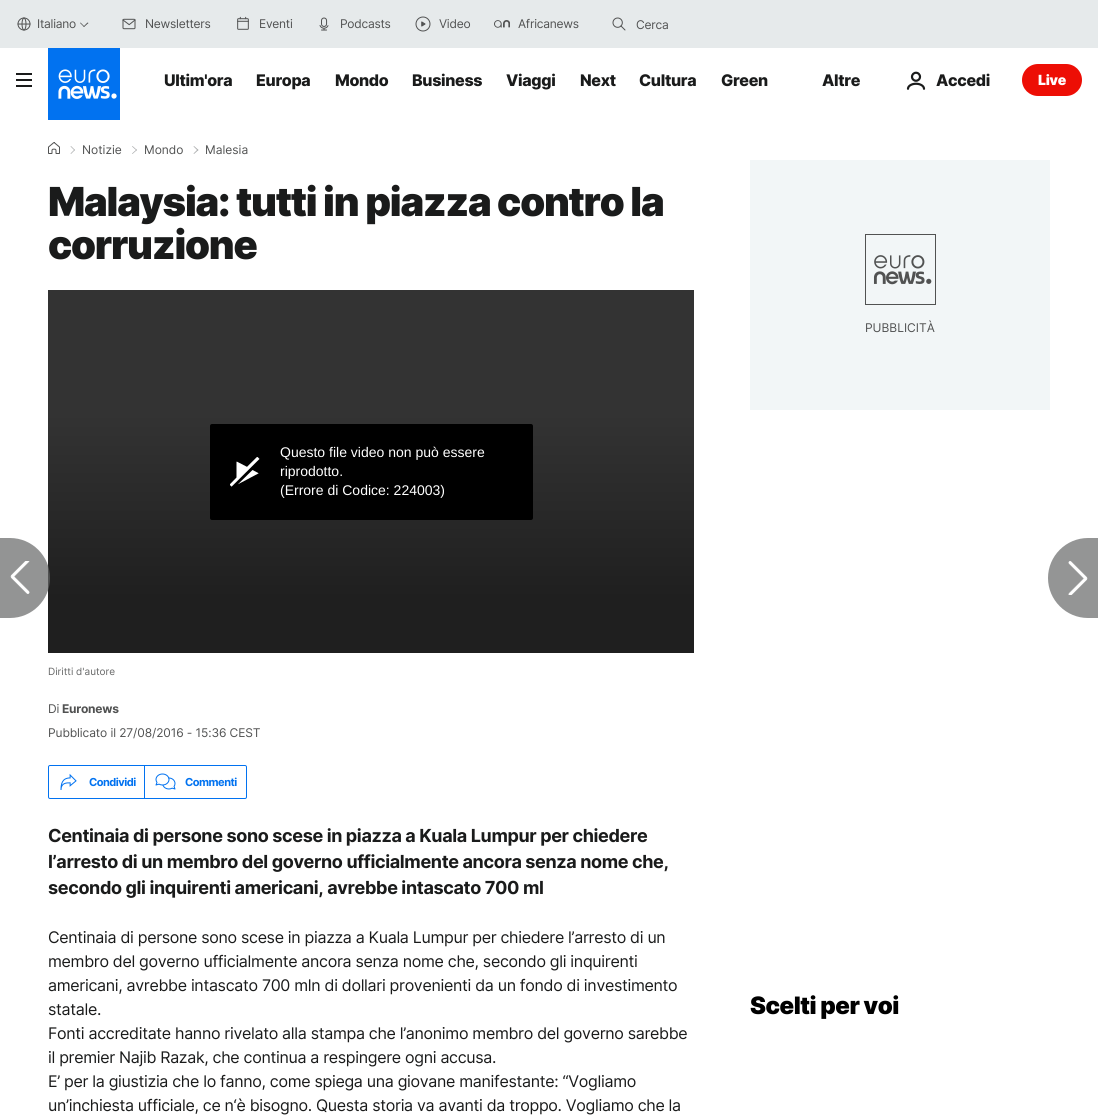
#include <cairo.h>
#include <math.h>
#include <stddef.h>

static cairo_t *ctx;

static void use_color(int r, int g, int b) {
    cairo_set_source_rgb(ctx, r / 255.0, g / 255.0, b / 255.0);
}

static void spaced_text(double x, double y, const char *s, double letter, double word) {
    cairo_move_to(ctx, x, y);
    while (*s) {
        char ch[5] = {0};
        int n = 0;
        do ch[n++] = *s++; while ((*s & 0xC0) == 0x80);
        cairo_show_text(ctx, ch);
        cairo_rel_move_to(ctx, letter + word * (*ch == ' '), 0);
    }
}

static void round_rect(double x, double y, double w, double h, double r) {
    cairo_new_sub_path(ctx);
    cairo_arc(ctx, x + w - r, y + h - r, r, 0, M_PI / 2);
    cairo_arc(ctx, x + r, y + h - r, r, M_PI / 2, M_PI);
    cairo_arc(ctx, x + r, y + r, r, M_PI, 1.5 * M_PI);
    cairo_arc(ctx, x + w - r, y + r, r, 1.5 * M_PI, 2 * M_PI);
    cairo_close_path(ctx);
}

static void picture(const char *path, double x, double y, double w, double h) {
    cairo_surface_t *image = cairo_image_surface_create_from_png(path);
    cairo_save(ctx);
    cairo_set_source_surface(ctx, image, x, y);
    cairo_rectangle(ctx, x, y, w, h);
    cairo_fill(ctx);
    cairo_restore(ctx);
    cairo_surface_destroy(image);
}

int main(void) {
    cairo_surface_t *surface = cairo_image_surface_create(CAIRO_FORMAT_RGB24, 1098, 1119);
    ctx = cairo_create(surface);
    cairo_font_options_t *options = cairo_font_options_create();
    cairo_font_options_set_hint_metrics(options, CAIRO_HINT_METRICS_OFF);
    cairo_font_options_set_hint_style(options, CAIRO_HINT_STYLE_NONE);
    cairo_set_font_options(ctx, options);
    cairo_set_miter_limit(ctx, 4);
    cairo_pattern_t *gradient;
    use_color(255, 255, 255);
    cairo_paint(ctx);
    use_color(230, 234, 235);
    cairo_rectangle(ctx, 0, 0, 1098, 48);
    cairo_fill(ctx);
    picture("img1.png", 17, 17, 14, 14);
    cairo_select_font_face(ctx, "Inter", CAIRO_FONT_SLANT_NORMAL, CAIRO_FONT_WEIGHT_NORMAL);
    cairo_set_font_size(ctx, 12);
    use_color(81, 82, 82);
    spaced_text(37, 28, "Italiano", -0.25, 0);
    cairo_new_path(ctx);
    cairo_move_to(ctx, 88.5, 23);
    cairo_line_to(ctx, 84, 27);
    cairo_line_to(ctx, 83.5, 26.5);
    cairo_line_to(ctx, 87.5, 22.5);
    cairo_close_path(ctx);
    cairo_fill(ctx);
    cairo_new_path(ctx);
    cairo_move_to(ctx, 84.5, 26.5);
    cairo_line_to(ctx, 84, 27);
    cairo_line_to(ctx, 80, 23);
    cairo_line_to(ctx, 80.5, 22.5);
    cairo_close_path(ctx);
    cairo_fill(ctx);
    picture("img2.png", 122, 18, 14, 12);
    spaced_text(145, 28, "Newsletters", -0.25, 0);
    picture("img3.png", 237, 16, 12, 14);
    spaced_text(259, 28, "Eventi", -0.25, 0);
    picture("img4.png", 319, 17, 10, 14);
    spaced_text(340, 28, "Podcasts", -0.25, 0);
    picture("img5.png", 415, 16, 16, 16);
    spaced_text(439, 28, "Video", -0.25, 0);
    picture("img6.png", 494, 20, 16, 8);
    spaced_text(518, 28, "Africanews", -0.25, 0);
    picture("img7.png", 612, 17, 14, 14);
    spaced_text(636, 29, "Cerca", -0.25, 0);
    use_color(26, 27, 27);
    cairo_rectangle(ctx, 16, 73, 16, 2);
    cairo_fill(ctx);
    cairo_rectangle(ctx, 16, 79, 16, 2);
    cairo_fill(ctx);
    cairo_rectangle(ctx, 16, 85, 16, 2);
    cairo_fill(ctx);
    picture("img8.png", 48, 48, 72, 72);
    cairo_select_font_face(ctx, "Inter ExtraBold", CAIRO_FONT_SLANT_NORMAL, CAIRO_FONT_WEIGHT_NORMAL);
    cairo_set_font_size(ctx, 16);
    spaced_text(164, 86, "Ultim'ora", -0.32, 0);
    spaced_text(256, 86, "Europa", -0.32, 0);
    spaced_text(335, 86, "Mondo", -0.32, 0);
    spaced_text(412, 86, "Business", -0.32, 0);
    spaced_text(506, 86, "Viaggi", -0.32, 0);
    spaced_text(580, 86, "Next", -0.32, 0);
    spaced_text(639, 86, "Cultura", -0.32, 0);
    spaced_text(721, 86, "Green", -0.32, 0);
    spaced_text(822, 86, "Altre", -0.32, 0);
    picture("img9.png", 906, 71, 20, 19);
    spaced_text(936, 86, "Accedi", -0.32, 0);
    use_color(237, 14, 5);
    round_rect(1022, 64, 60, 32, 16);
    cairo_fill(ctx);
    cairo_select_font_face(ctx, "Inter Black", CAIRO_FONT_SLANT_NORMAL, CAIRO_FONT_WEIGHT_NORMAL);
    cairo_set_font_size(ctx, 14);
    use_color(255, 255, 255);
    spaced_text(1038, 85, "Live", -0.32, 0);
    picture("img10.png", 48, 142, 12, 12);
    use_color(171, 173, 174);
    cairo_new_path(ctx);
    cairo_move_to(ctx, 71, 146);
    cairo_line_to(ctx, 75, 150);
    cairo_line_to(ctx, 74.5, 150.5);
    cairo_line_to(ctx, 70.5, 146.5);
    cairo_close_path(ctx);
    cairo_fill(ctx);
    cairo_new_path(ctx);
    cairo_move_to(ctx, 74.5, 149.5);
    cairo_line_to(ctx, 75, 150);
    cairo_line_to(ctx, 71, 154);
    cairo_line_to(ctx, 70.5, 153.5);
    cairo_close_path(ctx);
    cairo_fill(ctx);
    cairo_select_font_face(ctx, "Inter", CAIRO_FONT_SLANT_NORMAL, CAIRO_FONT_WEIGHT_NORMAL);
    cairo_set_font_size(ctx, 12);
    use_color(81, 82, 82);
    cairo_move_to(ctx, 82, 154);
    cairo_show_text(ctx, "Notizie");
    use_color(171, 173, 174);
    cairo_new_path(ctx);
    cairo_move_to(ctx, 132.5, 146);
    cairo_line_to(ctx, 137, 150);
    cairo_line_to(ctx, 136.5, 150.5);
    cairo_line_to(ctx, 132, 146.5);
    cairo_close_path(ctx);
    cairo_fill(ctx);
    cairo_new_path(ctx);
    cairo_move_to(ctx, 136.5, 149.5);
    cairo_line_to(ctx, 137, 150);
    cairo_line_to(ctx, 132.5, 154);
    cairo_line_to(ctx, 132, 153.5);
    cairo_close_path(ctx);
    cairo_fill(ctx);
    use_color(81, 82, 82);
    cairo_move_to(ctx, 144, 154);
    cairo_show_text(ctx, "Mondo");
    use_color(171, 173, 174);
    cairo_new_path(ctx);
    cairo_move_to(ctx, 194, 146);
    cairo_line_to(ctx, 198.5, 150);
    cairo_line_to(ctx, 197.5, 150.5);
    cairo_line_to(ctx, 193.5, 146.5);
    cairo_close_path(ctx);
    cairo_fill(ctx);
    cairo_new_path(ctx);
    cairo_move_to(ctx, 197.5, 149.5);
    cairo_line_to(ctx, 198.5, 150);
    cairo_line_to(ctx, 194, 154);
    cairo_line_to(ctx, 193.5, 153.5);
    cairo_close_path(ctx);
    cairo_fill(ctx);
    use_color(81, 82, 82);
    cairo_move_to(ctx, 205, 154);
    cairo_show_text(ctx, "Malesia");
    cairo_select_font_face(ctx, "Inter Black", CAIRO_FONT_SLANT_NORMAL, CAIRO_FONT_WEIGHT_NORMAL);
    cairo_set_font_size(ctx, 40);
    use_color(26, 27, 27);
    spaced_text(48, 216, "Malaysia: tutti in piazza contro la", -1.2, 0);
    spaced_text(48, 259, "corruzione", -1.2, 0);
    use_color(51, 51, 51);
    cairo_rectangle(ctx, 48, 290, 646, 123);
    cairo_fill(ctx);
    gradient = cairo_pattern_create_linear(371, 413, 371, 653);
    cairo_pattern_add_color_stop_rgba(gradient, 0, 0.2, 0.2, 0.2, 1);
    cairo_pattern_add_color_stop_rgba(gradient, 0.77, 0.122, 0.122, 0.122, 1);
    cairo_pattern_add_color_stop_rgba(gradient, 1, 0.122, 0.122, 0.122, 1);
    cairo_set_source(ctx, gradient);
    cairo_pattern_destroy(gradient);
    cairo_rectangle(ctx, 48, 413, 646, 240);
    cairo_fill(ctx);
    use_color(0, 0, 0);
    round_rect(210, 424, 323, 96, 2);
    cairo_fill(ctx);
    picture("img11.png", 230, 457, 30, 30);
    cairo_select_font_face(ctx, "Liberation Sans", CAIRO_FONT_SLANT_NORMAL, CAIRO_FONT_WEIGHT_NORMAL);
    cairo_set_font_size(ctx, 14);
    use_color(255, 255, 255);
    cairo_move_to(ctx, 280, 457);
    cairo_show_text(ctx, "Questo file video non può essere");
    cairo_move_to(ctx, 280, 476);
    cairo_show_text(ctx, "riprodotto.");
    cairo_move_to(ctx, 280, 495);
    cairo_show_text(ctx, "(Errore di Codice: 224003)");
    cairo_select_font_face(ctx, "Inter", CAIRO_FONT_SLANT_NORMAL, CAIRO_FONT_WEIGHT_NORMAL);
    cairo_set_font_size(ctx, 10);
    use_color(102, 103, 103);
    cairo_move_to(ctx, 48, 675);
    cairo_show_text(ctx, "Diritti d'autore");
    cairo_set_font_size(ctx, 12);
    use_color(81, 82, 82);
    spaced_text(48, 713, "Di", -0.25, 0);
    cairo_select_font_face(ctx, "Inter", CAIRO_FONT_SLANT_NORMAL, CAIRO_FONT_WEIGHT_BOLD);
    spaced_text(62, 713, "Euronews", -0.25, 0);
    cairo_select_font_face(ctx, "Inter", CAIRO_FONT_SLANT_NORMAL, CAIRO_FONT_WEIGHT_NORMAL);
    spaced_text(48, 737, "Pubblicato il 27/08/2016 - 15:36 CEST", -0.1, 0);
    round_rect(48.5, 765.5, 198, 33, 1.5);
    use_color(1, 114, 240);
    cairo_set_line_width(ctx, 1);
    cairo_stroke(ctx);
    picture("img12.png", 60, 773, 17, 17);
    cairo_select_font_face(ctx, "Inter", CAIRO_FONT_SLANT_NORMAL, CAIRO_FONT_WEIGHT_BOLD);
    cairo_set_font_size(ctx, 11);
    spaced_text(89, 786, "Condividi", -0.5, 0);
    cairo_rectangle(ctx, 144, 766, 1, 32);
    cairo_fill(ctx);
    picture("img13.png", 155, 773, 21, 17);
    spaced_text(185, 786, "Commenti", -0.5, 0);
    cairo_set_font_size(ctx, 18);
    use_color(26, 27, 27);
    spaced_text(48, 842, "Centinaia di persone sono scese in piazza a Kuala Lumpur per chiedere", -0.35, 0);
    spaced_text(48, 868, "l’arresto di un membro del governo ufficialmente ancora senza nome che,", -0.35, 0);
    spaced_text(48, 894, "secondo gli inquirenti americani, avrebbe intascato 700 ml", -0.35, 0);
    cairo_select_font_face(ctx, "Inter", CAIRO_FONT_SLANT_NORMAL, CAIRO_FONT_WEIGHT_NORMAL);
    cairo_set_font_size(ctx, 16);
    spaced_text(48, 943, "Centinaia di persone sono scese in piazza a Kuala Lumpur per chiedere l’arresto di un", -0.32, 0);
    spaced_text(48, 967, "membro del governo ufficialmente ancora senza nome che, secondo gli inquirenti", -0.32, 0);
    spaced_text(48, 991, "americani, avrebbe intascato 700 mln di dollari provenienti da un fondo di investimento", -0.32, 0);
    spaced_text(48, 1015, "statale.", -0.32, 0);
    spaced_text(48, 1039, "Fonti accreditate hanno rivelato alla stampa che l’anonimo membro del governo sarebbe", -0.32, 0);
    spaced_text(48, 1063, "il premier Najib Razak, che continua a respingere ogni accusa.", -0.32, 0);
    spaced_text(48, 1087, "E’ per la giustizia che lo fanno, come spiega una giovane manifestante: “Vogliamo", -0.32, 0);
    spaced_text(48, 1111, "un’inchiesta ufficiale, ce n‘è bisogno. Questa storia va avanti da troppo. Vogliamo che la", -0.32, 0);
    use_color(242, 246, 247);
    cairo_rectangle(ctx, 750, 160, 300, 250);
    cairo_fill(ctx);
    picture("img14.png", 865, 234, 71, 71);
    cairo_set_font_size(ctx, 12);
    use_color(81, 82, 82);
    cairo_move_to(ctx, 865, 332);
    cairo_show_text(ctx, "PUBBLICITÀ");
    cairo_select_font_face(ctx, "Inter Black", CAIRO_FONT_SLANT_NORMAL, CAIRO_FONT_WEIGHT_NORMAL);
    cairo_set_font_size(ctx, 24);
    use_color(0, 0, 0);
    spaced_text(750, 1014, "Scelti per voi", -0.5, 0);
    cairo_set_source_rgba(ctx, 0.4, 0.404, 0.404, 0.7);
    cairo_new_path(ctx);
    cairo_move_to(ctx, 0, 538);
    cairo_line_to(ctx, 10, 538);
    cairo_curve_to(ctx, 32, 538, 50, 556, 50, 578);
    cairo_curve_to(ctx, 50, 600, 32, 618, 10, 618);
    cairo_line_to(ctx, 0, 618);
    cairo_close_path(ctx);
    cairo_fill(ctx);
    picture("img15.png", 10, 561, 20, 33);
    use_color(148, 149, 149);
    cairo_new_path(ctx);
    cairo_move_to(ctx, 1088, 538);
    cairo_line_to(ctx, 1098, 538);
    cairo_line_to(ctx, 1098, 618);
    cairo_line_to(ctx, 1088, 618);
    cairo_curve_to(ctx, 1066, 618, 1048, 600, 1048, 578);
    cairo_curve_to(ctx, 1048, 556, 1066, 538, 1088, 538);
    cairo_close_path(ctx);
    cairo_fill(ctx);
    picture("img16.png", 1068, 561, 20, 34);
    cairo_surface_write_to_png(surface, "result.png");
    cairo_font_options_destroy(options);
    cairo_destroy(ctx);
    cairo_surface_destroy(surface);
    return 0;
}
